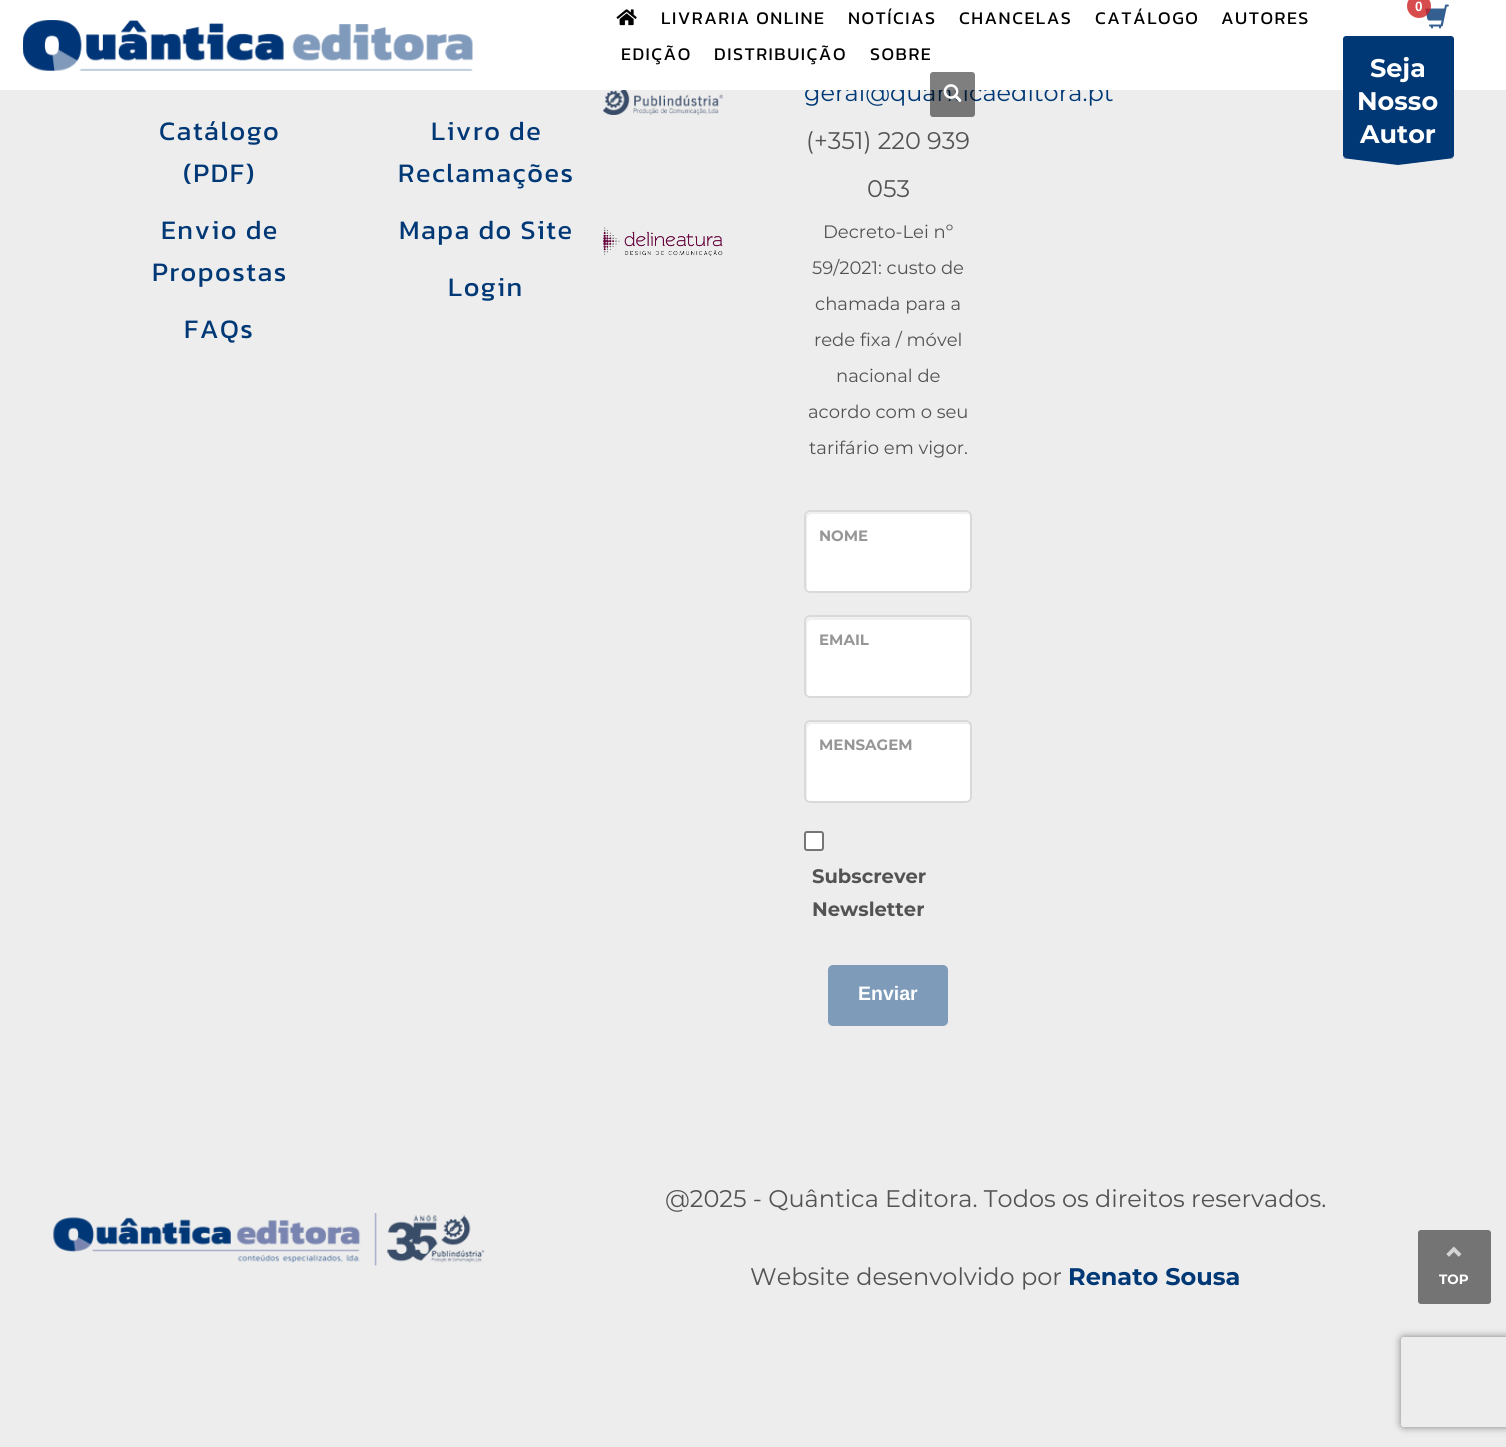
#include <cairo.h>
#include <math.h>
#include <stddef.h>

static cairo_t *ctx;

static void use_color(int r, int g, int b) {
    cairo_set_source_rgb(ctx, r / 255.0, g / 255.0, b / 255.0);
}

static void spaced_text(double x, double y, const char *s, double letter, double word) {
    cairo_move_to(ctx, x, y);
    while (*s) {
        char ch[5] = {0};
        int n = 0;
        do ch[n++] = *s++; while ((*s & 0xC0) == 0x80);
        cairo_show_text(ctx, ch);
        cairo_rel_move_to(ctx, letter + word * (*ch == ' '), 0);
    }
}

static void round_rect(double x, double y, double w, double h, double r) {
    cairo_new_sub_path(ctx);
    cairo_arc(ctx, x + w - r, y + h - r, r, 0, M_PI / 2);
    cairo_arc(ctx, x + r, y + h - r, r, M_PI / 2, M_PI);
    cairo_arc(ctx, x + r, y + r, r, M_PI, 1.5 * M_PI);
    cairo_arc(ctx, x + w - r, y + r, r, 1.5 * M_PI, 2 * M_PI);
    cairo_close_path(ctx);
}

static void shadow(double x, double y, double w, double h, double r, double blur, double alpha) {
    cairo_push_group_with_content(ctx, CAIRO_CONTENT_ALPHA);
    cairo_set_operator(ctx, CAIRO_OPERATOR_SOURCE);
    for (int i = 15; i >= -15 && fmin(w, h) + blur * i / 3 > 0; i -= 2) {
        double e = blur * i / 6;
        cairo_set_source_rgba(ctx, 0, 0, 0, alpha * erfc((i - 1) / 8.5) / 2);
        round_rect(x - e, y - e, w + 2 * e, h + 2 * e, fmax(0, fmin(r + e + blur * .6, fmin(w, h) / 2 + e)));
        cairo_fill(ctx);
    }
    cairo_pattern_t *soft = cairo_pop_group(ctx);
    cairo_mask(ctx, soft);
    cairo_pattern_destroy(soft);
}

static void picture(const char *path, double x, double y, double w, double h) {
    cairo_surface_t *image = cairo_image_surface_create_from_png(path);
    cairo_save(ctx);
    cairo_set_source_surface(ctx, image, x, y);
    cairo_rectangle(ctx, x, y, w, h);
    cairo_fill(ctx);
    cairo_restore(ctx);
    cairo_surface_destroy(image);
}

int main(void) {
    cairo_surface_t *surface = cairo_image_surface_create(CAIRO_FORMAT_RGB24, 1506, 1447);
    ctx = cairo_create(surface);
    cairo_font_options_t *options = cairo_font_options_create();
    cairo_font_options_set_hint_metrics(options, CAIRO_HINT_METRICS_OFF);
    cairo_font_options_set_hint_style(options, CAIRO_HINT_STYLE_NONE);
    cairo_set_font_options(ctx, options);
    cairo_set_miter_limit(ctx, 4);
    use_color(237, 237, 237);
    cairo_paint(ctx);
    cairo_select_font_face(ctx, "Montserrat", CAIRO_FONT_SLANT_NORMAL, CAIRO_FONT_WEIGHT_NORMAL);
    cairo_set_font_size(ctx, 24);
    use_color(0, 56, 118);
    cairo_move_to(ctx, 804, 101);
    cairo_show_text(ctx, "geral@quanticaeditora.pt");
    use_color(255, 255, 255);
    cairo_rectangle(ctx, 0, 0, 1506, 90);
    cairo_fill(ctx);
    picture("img1.png", 23, 20, 450, 51);
    picture("img2.png", 616, 9, 21, 17);
    cairo_select_font_face(ctx, "Kanit", CAIRO_FONT_SLANT_NORMAL, CAIRO_FONT_WEIGHT_NORMAL);
    cairo_set_font_size(ctx, 18);
    use_color(0, 0, 0);
    spaced_text(661, 24, "LIVRARIA ONLINE", 1.5, 0);
    spaced_text(848, 24, "NOTÍCIAS", 1.5, 0);
    spaced_text(959, 24, "CHANCELAS", 1.5, 0);
    spaced_text(1095, 24, "CATÁLOGO", 1.5, 0);
    spaced_text(1221, 24, "AUTORES", 1.5, 0);
    spaced_text(621, 60, "EDIÇÃO", 1.5, 0);
    spaced_text(714, 60, "DISTRIBUIÇÃO", 1.5, 0);
    spaced_text(870, 60, "SOBRE", 1.5, 0);
    cairo_set_source_rgba(ctx, 0, 0, 0, 0.5);
    round_rect(930, 72, 45, 45, 3);
    cairo_fill(ctx);
    picture("img3.png", 943, 84, 19, 19);
    picture("img4.png", 1425, 4, 24, 25);
    cairo_set_source_rgba(ctx, 0.804, 0.129, 0.133, 0.8);
    cairo_arc(ctx, 1419, 6, 12, 0, 2 * M_PI);
    cairo_fill(ctx);
    cairo_select_font_face(ctx, "Liberation Sans", CAIRO_FONT_SLANT_NORMAL, CAIRO_FONT_WEIGHT_BOLD);
    cairo_set_font_size(ctx, 13.5);
    use_color(255, 255, 255);
    cairo_move_to(ctx, 1415, 11);
    cairo_show_text(ctx, "0");
    use_color(0, 56, 118);
    round_rect(1343, 36, 111, 122, 3);
    cairo_fill(ctx);
    cairo_select_font_face(ctx, "Montserrat", CAIRO_FONT_SLANT_NORMAL, CAIRO_FONT_WEIGHT_BOLD);
    cairo_set_font_size(ctx, 25.5);
    use_color(255, 255, 255);
    cairo_move_to(ctx, 1370, 77);
    cairo_show_text(ctx, "Seja");
    cairo_move_to(ctx, 1357, 110);
    cairo_show_text(ctx, "Nosso");
    cairo_move_to(ctx, 1360, 143);
    cairo_show_text(ctx, "Autor");
    use_color(0, 56, 118);
    cairo_set_fill_rule(ctx, CAIRO_FILL_RULE_EVEN_ODD);
    cairo_new_path(ctx);
    cairo_move_to(ctx, 1454, 158);
    cairo_line_to(ctx, 1398, 165);
    cairo_line_to(ctx, 1342, 158);
    cairo_close_path(ctx);
    cairo_fill(ctx);
    cairo_select_font_face(ctx, "Kanit", CAIRO_FONT_SLANT_NORMAL, CAIRO_FONT_WEIGHT_NORMAL);
    cairo_set_font_size(ctx, 27);
    spaced_text(159, 140, "Catálogo", 1.5, 0);
    spaced_text(183, 182, "(PDF)", 1.5, 0);
    spaced_text(161, 239, "Envio de", 1.5, 0);
    spaced_text(152, 281, "Propostas", 1.5, 0);
    spaced_text(184, 338, "FAQs", 1.5, 0);
    spaced_text(431, 140, "Livro de", 1.5, 0);
    spaced_text(398, 182, "Reclamações", 1.5, 0);
    spaced_text(399, 239, "Mapa do Site", 1.5, 0);
    spaced_text(448, 296, "Login", 1.5, 0);
    picture("img5.png", 603, 90, 120, 25);
    picture("img6.png", 603, 227, 120, 29);
    cairo_select_font_face(ctx, "Montserrat", CAIRO_FONT_SLANT_NORMAL, CAIRO_FONT_WEIGHT_NORMAL);
    cairo_set_font_size(ctx, 24);
    use_color(83, 83, 83);
    cairo_move_to(ctx, 806, 149);
    cairo_show_text(ctx, "(+351) 220 939");
    cairo_move_to(ctx, 867, 197);
    cairo_show_text(ctx, "053");
    cairo_set_font_size(ctx, 18);
    cairo_move_to(ctx, 823, 238);
    cairo_show_text(ctx, "Decreto-Lei nº");
    cairo_move_to(ctx, 812, 274);
    cairo_show_text(ctx, "59/2021: custo de");
    cairo_move_to(ctx, 815, 310);
    cairo_show_text(ctx, "chamada para a");
    cairo_move_to(ctx, 814, 346);
    cairo_show_text(ctx, "rede fixa / móvel");
    cairo_move_to(ctx, 836, 382);
    cairo_show_text(ctx, "nacional de");
    cairo_move_to(ctx, 808, 418);
    cairo_show_text(ctx, "acordo com o seu");
    cairo_move_to(ctx, 809, 454);
    cairo_show_text(ctx, "tarifário em vigor.");
    use_color(255, 255, 255);
    round_rect(804, 510, 168, 83, 6);
    cairo_fill(ctx);
    use_color(240, 240, 240);
    cairo_set_fill_rule(ctx, CAIRO_FILL_RULE_WINDING);
    cairo_new_path(ctx);
    cairo_move_to(ctx, 812, 514);
    cairo_line_to(ctx, 968, 514);
    cairo_line_to(ctx, 971, 516);
    cairo_curve_to(ctx, 970, 514, 968, 512, 966, 512);
    cairo_line_to(ctx, 811, 512);
    cairo_curve_to(ctx, 808, 512, 806, 514, 806, 517);
    cairo_line_to(ctx, 806, 586);
    cairo_curve_to(ctx, 806, 587, 806, 588, 807, 589);
    cairo_line_to(ctx, 807, 519);
    cairo_curve_to(ctx, 807, 517, 809, 514, 812, 514);
    cairo_close_path(ctx);
    cairo_fill(ctx);
    round_rect(805, 511, 166, 81, 5);
    use_color(217, 217, 217);
    cairo_stroke(ctx);
    cairo_select_font_face(ctx, "Montserrat", CAIRO_FONT_SLANT_NORMAL, CAIRO_FONT_WEIGHT_BOLD);
    cairo_set_font_size(ctx, 15);
    use_color(150, 150, 150);
    cairo_move_to(ctx, 819, 541);
    cairo_show_text(ctx, "NOME");
    use_color(255, 255, 255);
    round_rect(804, 615, 168, 83, 6);
    cairo_fill(ctx);
    use_color(240, 240, 240);
    cairo_new_path(ctx);
    cairo_move_to(ctx, 812, 620);
    cairo_line_to(ctx, 968, 620);
    cairo_line_to(ctx, 971, 621);
    cairo_curve_to(ctx, 971, 619, 969, 617, 966, 617);
    cairo_line_to(ctx, 811, 617);
    cairo_curve_to(ctx, 808, 617, 806, 619, 806, 622);
    cairo_line_to(ctx, 806, 691);
    cairo_curve_to(ctx, 806, 692, 806, 693, 807, 694);
    cairo_line_to(ctx, 807, 624);
    cairo_curve_to(ctx, 807, 622, 809, 620, 812, 620);
    cairo_close_path(ctx);
    cairo_fill(ctx);
    round_rect(805, 616, 166, 81, 5);
    use_color(217, 217, 217);
    cairo_stroke(ctx);
    use_color(150, 150, 150);
    cairo_move_to(ctx, 819, 645);
    cairo_show_text(ctx, "EMAIL");
    use_color(255, 255, 255);
    round_rect(804, 720, 168, 83, 6);
    cairo_fill(ctx);
    use_color(240, 240, 240);
    cairo_new_path(ctx);
    cairo_move_to(ctx, 812, 724);
    cairo_line_to(ctx, 968, 724);
    cairo_line_to(ctx, 971, 726);
    cairo_curve_to(ctx, 970, 724, 968, 722, 966, 722);
    cairo_line_to(ctx, 811, 722);
    cairo_curve_to(ctx, 808, 722, 806, 724, 806, 727);
    cairo_line_to(ctx, 806, 796);
    cairo_curve_to(ctx, 806, 797, 806, 798, 807, 799);
    cairo_line_to(ctx, 807, 729);
    cairo_curve_to(ctx, 807, 727, 809, 724, 812, 724);
    cairo_close_path(ctx);
    cairo_fill(ctx);
    round_rect(805, 721, 166, 81, 5);
    use_color(217, 217, 217);
    cairo_stroke(ctx);
    use_color(150, 150, 150);
    cairo_move_to(ctx, 819, 750);
    cairo_show_text(ctx, "MENSAGEM");
    use_color(255, 255, 255);
    round_rect(805, 832, 18, 18, 2);
    cairo_fill_preserve(ctx);
    use_color(118, 118, 118);
    cairo_stroke(ctx);
    cairo_set_font_size(ctx, 19.5);
    use_color(83, 83, 83);
    cairo_move_to(ctx, 812, 883);
    cairo_show_text(ctx, "Subscrever");
    cairo_move_to(ctx, 812, 916);
    cairo_show_text(ctx, "Newsletter");
    use_color(127, 155, 186);
    round_rect(828, 965, 120, 61, 5);
    cairo_fill(ctx);
    cairo_select_font_face(ctx, "Liberation Sans", CAIRO_FONT_SLANT_NORMAL, CAIRO_FONT_WEIGHT_BOLD);
    use_color(255, 255, 255);
    cairo_move_to(ctx, 858, 1000);
    cairo_show_text(ctx, "Enviar");
    picture("img7.png", 53, 1213, 432, 53);
    cairo_select_font_face(ctx, "Montserrat", CAIRO_FONT_SLANT_NORMAL, CAIRO_FONT_WEIGHT_NORMAL);
    cairo_set_font_size(ctx, 24);
    use_color(83, 83, 83);
    cairo_move_to(ctx, 665, 1207);
    cairo_show_text(ctx, "@2025 - Quântica Editora. Todos os direitos reservados.");
    cairo_move_to(ctx, 750, 1285);
    cairo_show_text(ctx, "Website desenvolvido por");
    cairo_select_font_face(ctx, "Montserrat", CAIRO_FONT_SLANT_NORMAL, CAIRO_FONT_WEIGHT_BOLD);
    use_color(0, 56, 118);
    cairo_move_to(ctx, 1068, 1285);
    cairo_show_text(ctx, "Renato Sousa");
    use_color(116, 116, 116);
    round_rect(1418, 1230, 73, 74, 3);
    cairo_fill(ctx);
    picture("img8.png", 1446, 1246, 16, 11);
    cairo_set_font_size(ctx, 13.5);
    use_color(255, 255, 255);
    cairo_move_to(ctx, 1439, 1284);
    cairo_show_text(ctx, "TOP");
    cairo_save(ctx);
    cairo_set_fill_rule(ctx, CAIRO_FILL_RULE_EVEN_ODD);
    cairo_new_path(ctx);
    cairo_move_to(ctx, 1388, 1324);
    cairo_line_to(ctx, 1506, 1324);
    cairo_line_to(ctx, 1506, 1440);
    cairo_line_to(ctx, 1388, 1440);
    cairo_close_path(ctx);
    cairo_move_to(ctx, 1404, 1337);
    cairo_line_to(ctx, 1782, 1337);
    cairo_curve_to(ctx, 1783.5, 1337, 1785, 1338.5, 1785, 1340);
    cairo_line_to(ctx, 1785, 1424);
    cairo_curve_to(ctx, 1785, 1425.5, 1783.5, 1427, 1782, 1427);
    cairo_line_to(ctx, 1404, 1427);
    cairo_curve_to(ctx, 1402.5, 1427, 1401, 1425.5, 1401, 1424);
    cairo_line_to(ctx, 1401, 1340);
    cairo_curve_to(ctx, 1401, 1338.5, 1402.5, 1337, 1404, 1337);
    cairo_close_path(ctx);
    cairo_clip(ctx);
    use_color(128, 128, 128);
    shadow(1401, 1337, 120, 90, 3, 4, 1);
    cairo_restore(ctx);
    cairo_surface_write_to_png(surface, "result.png");
    cairo_font_options_destroy(options);
    cairo_destroy(ctx);
    cairo_surface_destroy(surface);
    return 0;
}
